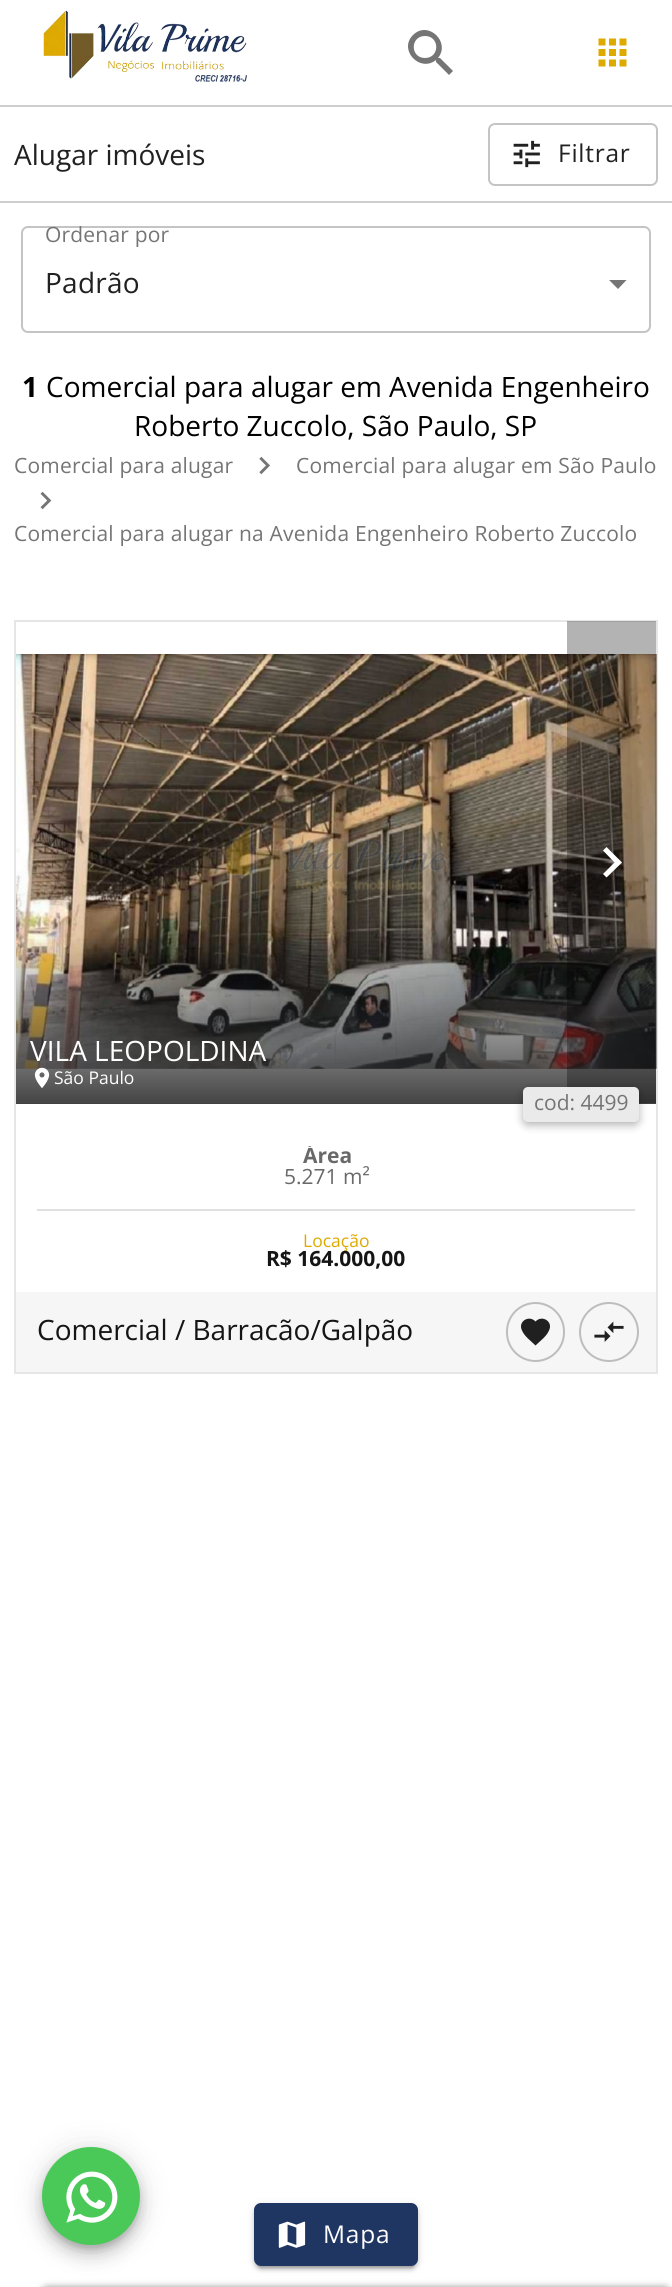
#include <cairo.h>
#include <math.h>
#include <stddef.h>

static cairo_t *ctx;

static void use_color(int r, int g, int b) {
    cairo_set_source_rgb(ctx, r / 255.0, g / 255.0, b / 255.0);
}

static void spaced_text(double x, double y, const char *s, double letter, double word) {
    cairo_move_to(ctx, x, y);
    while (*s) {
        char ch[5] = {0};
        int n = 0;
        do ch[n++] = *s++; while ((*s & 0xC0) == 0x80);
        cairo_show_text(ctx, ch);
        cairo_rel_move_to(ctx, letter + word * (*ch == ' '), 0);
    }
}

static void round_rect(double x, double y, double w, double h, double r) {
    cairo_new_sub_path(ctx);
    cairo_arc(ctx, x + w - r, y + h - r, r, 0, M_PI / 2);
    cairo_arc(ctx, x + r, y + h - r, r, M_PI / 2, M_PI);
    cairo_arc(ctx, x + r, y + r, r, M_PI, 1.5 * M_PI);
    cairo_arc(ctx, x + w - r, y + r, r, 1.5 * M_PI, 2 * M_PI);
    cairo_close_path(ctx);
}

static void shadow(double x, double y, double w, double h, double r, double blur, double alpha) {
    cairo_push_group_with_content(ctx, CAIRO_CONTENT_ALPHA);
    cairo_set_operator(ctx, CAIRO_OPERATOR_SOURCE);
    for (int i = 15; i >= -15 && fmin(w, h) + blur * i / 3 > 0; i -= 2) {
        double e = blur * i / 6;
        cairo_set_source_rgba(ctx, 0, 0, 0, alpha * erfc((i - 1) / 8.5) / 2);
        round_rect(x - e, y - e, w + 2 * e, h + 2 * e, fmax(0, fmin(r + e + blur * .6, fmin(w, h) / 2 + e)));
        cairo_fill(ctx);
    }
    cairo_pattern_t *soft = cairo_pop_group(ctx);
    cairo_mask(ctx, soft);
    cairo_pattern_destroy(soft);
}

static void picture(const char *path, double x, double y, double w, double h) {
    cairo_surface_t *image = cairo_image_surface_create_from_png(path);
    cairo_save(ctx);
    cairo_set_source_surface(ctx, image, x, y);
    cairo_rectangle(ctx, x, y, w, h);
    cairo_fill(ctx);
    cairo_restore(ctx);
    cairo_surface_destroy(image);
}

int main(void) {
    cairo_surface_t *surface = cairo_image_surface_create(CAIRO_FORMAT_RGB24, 672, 2287);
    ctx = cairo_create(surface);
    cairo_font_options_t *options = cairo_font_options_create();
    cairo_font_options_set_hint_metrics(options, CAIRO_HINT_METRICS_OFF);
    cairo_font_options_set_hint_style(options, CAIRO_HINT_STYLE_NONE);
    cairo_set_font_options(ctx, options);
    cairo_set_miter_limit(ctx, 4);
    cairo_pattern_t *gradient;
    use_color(255, 255, 255);
    cairo_paint(ctx);
    picture("img1.png", 43, 10, 204, 72);
    use_color(117, 117, 117);
    cairo_new_path(ctx);
    cairo_move_to(ctx, 440, 58);
    cairo_line_to(ctx, 438, 58);
    cairo_curve_to(ctx, 451, 42, 428, 20, 413, 35);
    cairo_curve_to(ctx, 398, 50, 420, 73, 436, 60);
    cairo_line_to(ctx, 436, 62);
    cairo_line_to(ctx, 449, 75);
    cairo_line_to(ctx, 453, 71);
    cairo_close_path(ctx);
    cairo_move_to(ctx, 425, 58);
    cairo_curve_to(ctx, 410, 58, 410, 36, 425, 36);
    cairo_curve_to(ctx, 440, 36, 440, 58, 425, 58);
    cairo_close_path(ctx);
    cairo_fill(ctx);
    picture("img2.png", 598, 38, 29, 29);
    use_color(206, 206, 206);
    cairo_rectangle(ctx, 0, 105, 672, 2);
    cairo_fill(ctx);
    cairo_rectangle(ctx, 0, 201, 672, 2);
    cairo_fill(ctx);
    cairo_select_font_face(ctx, "Open Sans", CAIRO_FONT_SLANT_NORMAL, CAIRO_FONT_WEIGHT_NORMAL);
    cairo_set_font_size(ctx, 28);
    use_color(33, 33, 33);
    cairo_move_to(ctx, 14, 165);
    cairo_show_text(ctx, "Alugar imóveis");
    round_rect(489, 124, 168, 61, 6);
    use_color(196, 196, 196);
    cairo_stroke(ctx);
    picture("img3.png", 513, 140, 27, 28);
    cairo_set_font_size(ctx, 24.5);
    use_color(33, 33, 33);
    spaced_text(558, 162, "Filtrar", 0.75, 0);
    use_color(117, 117, 117);
    cairo_new_path(ctx);
    cairo_move_to(ctx, 609, 280);
    cairo_line_to(ctx, 618, 289);
    cairo_line_to(ctx, 626.5, 280);
    cairo_close_path(ctx);
    cairo_fill(ctx);
    round_rect(22, 227, 628, 105, 6);
    use_color(196, 196, 196);
    cairo_stroke(ctx);
    cairo_set_font_size(ctx, 21);
    use_color(117, 117, 117);
    spaced_text(45, 242, "Ordenar por", 0.2, 0);
    cairo_set_font_size(ctx, 28);
    use_color(33, 33, 33);
    spaced_text(45, 293, "Padrão", 0.25, 0);
    cairo_select_font_face(ctx, "Open Sans", CAIRO_FONT_SLANT_NORMAL, CAIRO_FONT_WEIGHT_BOLD);
    use_color(0, 0, 0);
    cairo_move_to(ctx, 22, 397);
    cairo_show_text(ctx, "1");
    cairo_select_font_face(ctx, "Open Sans", CAIRO_FONT_SLANT_NORMAL, CAIRO_FONT_WEIGHT_NORMAL);
    cairo_move_to(ctx, 46, 397);
    cairo_show_text(ctx, "Comercial para alugar em Avenida Engenheiro");
    cairo_move_to(ctx, 134, 436);
    cairo_show_text(ctx, "Roberto Zuccolo, São Paulo, SP");
    cairo_set_font_size(ctx, 21);
    use_color(117, 117, 117);
    spaced_text(14, 473, "Comercial para alugar", 0.2, 0);
    picture("img4.png", 259, 456, 11, 19);
    spaced_text(296, 473, "Comercial para alugar em São Paulo", 0.2, 0);
    picture("img5.png", 40, 491, 12, 19);
    spaced_text(14, 541, "Comercial para alugar na Avenida Engenheiro Roberto Zuccolo", 0.2, 0);
    cairo_rectangle(ctx, 15, 621, 642, 752);
    use_color(230, 230, 230);
    cairo_stroke(ctx);
    picture("img6.png", 16, 654, 641, 415);
    cairo_rectangle(ctx, 16, 1103, 640, 1);
    cairo_fill(ctx);
    gradient = cairo_pattern_create_linear(336, 621, 336, 1104);
    cairo_pattern_add_color_stop_rgba(gradient, 0.65, 0.184, 0.184, 0.184, 0);
    cairo_pattern_add_color_stop_rgba(gradient, 1, 0.184, 0.184, 0.184, 0.9);
    cairo_set_source(ctx, gradient);
    cairo_pattern_destroy(gradient);
    cairo_rectangle(ctx, 16, 939, 640, 165);
    cairo_fill(ctx);
    cairo_set_source_rgba(ctx, 0, 0, 0, 0.3);
    cairo_rectangle(ctx, 567, 621, 89, 482);
    cairo_fill(ctx);
    use_color(255, 255, 255);
    cairo_new_path(ctx);
    cairo_move_to(ctx, 606.5, 847);
    cairo_line_to(ctx, 603, 850.5);
    cairo_line_to(ctx, 614.5, 862.5);
    cairo_line_to(ctx, 603, 874);
    cairo_line_to(ctx, 606.5, 877.5);
    cairo_line_to(ctx, 622, 862.5);
    cairo_close_path(ctx);
    cairo_fill(ctx);
    cairo_set_font_size(ctx, 28);
    cairo_move_to(ctx, 30, 1061);
    cairo_show_text(ctx, "VILA LEOPOLDINA");
    picture("img7.png", 34, 1067, 16, 21);
    cairo_set_font_size(ctx, 17.5);
    cairo_move_to(ctx, 54, 1084);
    cairo_show_text(ctx, "São Paulo");
    use_color(0, 0, 0);
    shadow(523, 1090, 116, 35, 5, 4.5, 0.3);
    use_color(234, 234, 234);
    round_rect(523, 1087, 116, 35, 5);
    cairo_fill(ctx);
    cairo_set_font_size(ctx, 21);
    use_color(117, 117, 117);
    cairo_move_to(ctx, 534, 1110);
    cairo_show_text(ctx, "cod: 4499");
    cairo_save(ctx);
    cairo_rectangle(ctx, 37, 1146, 598, 42);
    cairo_clip(ctx);
    cairo_select_font_face(ctx, "Open Sans", CAIRO_FONT_SLANT_NORMAL, CAIRO_FONT_WEIGHT_BOLD);
    use_color(105, 105, 105);
    cairo_move_to(ctx, 303, 1163);
    cairo_show_text(ctx, "Área");
    cairo_restore(ctx);
    use_color(105, 105, 105);
    cairo_move_to(ctx, 284, 1184);
    cairo_show_text(ctx, "5.271 m²");
    use_color(224, 224, 224);
    cairo_rectangle(ctx, 37, 1209, 598, 2);
    cairo_fill(ctx);
    cairo_set_font_size(ctx, 17.5);
    use_color(221, 170, 0);
    cairo_move_to(ctx, 303, 1247);
    cairo_show_text(ctx, "Locação");
    cairo_select_font_face(ctx, "Open Sans", CAIRO_FONT_SLANT_NORMAL, CAIRO_FONT_WEIGHT_BOLD);
    cairo_set_font_size(ctx, 21);
    use_color(21, 21, 21);
    cairo_move_to(ctx, 266, 1266);
    cairo_show_text(ctx, "R$ 164.000,00");
    use_color(246, 246, 246);
    cairo_rectangle(ctx, 16, 1292, 640, 80);
    cairo_fill(ctx);
    cairo_select_font_face(ctx, "Open Sans", CAIRO_FONT_SLANT_NORMAL, CAIRO_FONT_WEIGHT_NORMAL);
    cairo_set_font_size(ctx, 28);
    use_color(21, 21, 21);
    cairo_move_to(ctx, 37, 1340);
    cairo_show_text(ctx, "Comercial / Barracão/Galpão");
    round_rect(507, 1303, 57, 58, 28.5);
    use_color(189, 189, 189);
    cairo_stroke(ctx);
    use_color(32, 32, 32);
    cairo_new_path(ctx);
    cairo_move_to(ctx, 535.5, 1345.5);
    cairo_curve_to(ctx, 531, 1341, 524.5, 1336.5, 522, 1330.5);
    cairo_curve_to(ctx, 517.5, 1321.5, 529, 1314.5, 535.5, 1321.5);
    cairo_curve_to(ctx, 542, 1314.5, 553.5, 1321.5, 549, 1330.5);
    cairo_curve_to(ctx, 546.5, 1336.5, 540, 1341, 535.5, 1345.5);
    cairo_close_path(ctx);
    cairo_fill(ctx);
    cairo_arc(ctx, 609, 1332, 29, 0, 2 * M_PI);
    use_color(189, 189, 189);
    cairo_stroke(ctx);
    picture("img8.png", 594, 1321, 30, 21);
    use_color(0, 0, 0);
    shadow(254, 2205, 164, 63, 7, 4.5, 0.12);
    shadow(254, 2207, 164, 63, 7, 2, 0.14);
    shadow(257, 2212, 158, 56, 4, 1, 0.2);
    use_color(31, 54, 98);
    round_rect(254, 2203, 164, 63, 7);
    cairo_fill(ctx);
    picture("img9.png", 278, 2221, 28, 27);
    cairo_set_font_size(ctx, 24.5);
    use_color(255, 255, 255);
    spaced_text(323, 2243, "Mapa", 0.75, 0);
    use_color(0, 0, 0);
    shadow(42, 2149, 98, 98, 49, 16, 0.12);
    shadow(42, 2158, 98, 98, 49, 9, 0.14);
    shadow(44, 2154, 94, 95, 47, 4.5, 0.2);
    use_color(74, 201, 89);
    cairo_arc(ctx, 91, 2196, 49, 0, 2 * M_PI);
    cairo_fill(ctx);
    picture("img10.png", 66, 2171, 52, 52);
    use_color(0, 0, 0);
    shadow(40, 2287, 632, 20, 9, 3.5, 0.4);
    cairo_surface_write_to_png(surface, "result.png");
    cairo_font_options_destroy(options);
    cairo_destroy(ctx);
    cairo_surface_destroy(surface);
    return 0;
}
